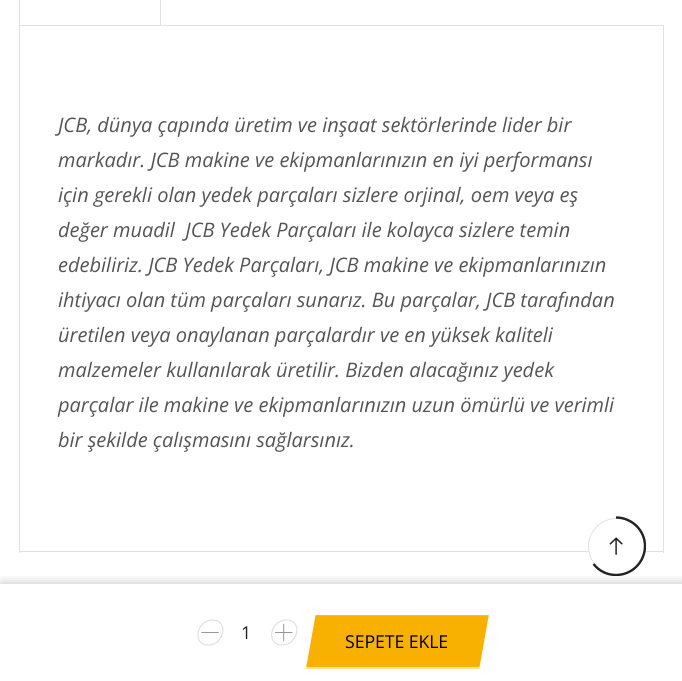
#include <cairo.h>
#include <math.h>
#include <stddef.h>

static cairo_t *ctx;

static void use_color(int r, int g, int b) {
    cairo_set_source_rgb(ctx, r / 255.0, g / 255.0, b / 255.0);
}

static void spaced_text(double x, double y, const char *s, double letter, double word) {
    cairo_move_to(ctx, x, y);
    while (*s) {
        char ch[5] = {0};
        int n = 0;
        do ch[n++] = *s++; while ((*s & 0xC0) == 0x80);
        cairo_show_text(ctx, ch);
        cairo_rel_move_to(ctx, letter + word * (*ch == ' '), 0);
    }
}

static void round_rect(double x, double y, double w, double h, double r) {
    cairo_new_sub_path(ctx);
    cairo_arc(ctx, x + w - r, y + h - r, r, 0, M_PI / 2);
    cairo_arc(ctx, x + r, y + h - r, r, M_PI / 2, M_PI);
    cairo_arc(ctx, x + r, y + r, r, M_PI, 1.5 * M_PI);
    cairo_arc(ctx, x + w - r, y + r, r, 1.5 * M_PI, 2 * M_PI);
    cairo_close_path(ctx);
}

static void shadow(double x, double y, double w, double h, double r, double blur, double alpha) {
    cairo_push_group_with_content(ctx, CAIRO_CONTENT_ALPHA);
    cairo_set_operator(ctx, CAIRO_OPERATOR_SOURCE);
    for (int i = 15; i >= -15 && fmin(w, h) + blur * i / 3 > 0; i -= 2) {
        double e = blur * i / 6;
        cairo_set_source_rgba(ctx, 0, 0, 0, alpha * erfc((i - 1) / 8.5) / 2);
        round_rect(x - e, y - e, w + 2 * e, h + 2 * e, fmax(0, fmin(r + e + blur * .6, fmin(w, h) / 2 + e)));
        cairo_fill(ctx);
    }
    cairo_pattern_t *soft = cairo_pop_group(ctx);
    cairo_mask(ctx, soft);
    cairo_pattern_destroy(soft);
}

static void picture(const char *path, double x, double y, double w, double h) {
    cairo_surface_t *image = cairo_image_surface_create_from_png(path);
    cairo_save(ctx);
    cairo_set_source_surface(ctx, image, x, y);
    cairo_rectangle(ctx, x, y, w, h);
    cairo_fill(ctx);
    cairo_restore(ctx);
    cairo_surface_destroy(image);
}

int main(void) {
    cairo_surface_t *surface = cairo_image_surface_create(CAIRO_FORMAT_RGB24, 682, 681);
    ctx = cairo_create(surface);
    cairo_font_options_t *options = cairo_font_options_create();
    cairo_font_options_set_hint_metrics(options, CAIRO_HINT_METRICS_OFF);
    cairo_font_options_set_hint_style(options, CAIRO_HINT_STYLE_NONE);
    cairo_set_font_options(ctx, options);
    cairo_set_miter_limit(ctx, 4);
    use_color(255, 255, 255);
    cairo_paint(ctx);
    use_color(225, 225, 225);
    cairo_rectangle(ctx, 19, 25, 645, 1);
    cairo_fill(ctx);
    cairo_rectangle(ctx, 160, 0, 1, 25);
    cairo_fill(ctx);
    cairo_rectangle(ctx, 19, 0, 1, 25);
    cairo_fill(ctx);
    cairo_rectangle(ctx, 663, 26, 1, 527);
    cairo_fill(ctx);
    cairo_rectangle(ctx, 19, 551, 645, 1);
    cairo_fill(ctx);
    cairo_rectangle(ctx, 19, 26, 1, 527);
    cairo_fill(ctx);
    cairo_select_font_face(ctx, "Open Sans", CAIRO_FONT_SLANT_ITALIC, CAIRO_FONT_WEIGHT_NORMAL);
    cairo_set_font_size(ctx, 20);
    use_color(85, 85, 85);
    cairo_move_to(ctx, 58, 132);
    cairo_show_text(ctx, "JCB, dünya çapında üretim ve inşaat sektörlerinde lider bir");
    cairo_move_to(ctx, 58, 167);
    cairo_show_text(ctx, "markadır. JCB makine ve ekipmanlarınızın en iyi performansı");
    cairo_move_to(ctx, 58, 202);
    cairo_show_text(ctx, "için gerekli olan yedek parçaları sizlere orjinal, oem veya eş");
    cairo_move_to(ctx, 58, 237);
    cairo_show_text(ctx, "değer muadil  JCB Yedek Parçaları ile kolayca sizlere temin");
    cairo_move_to(ctx, 58, 272);
    cairo_show_text(ctx, "edebiliriz. JCB Yedek Parçaları, JCB makine ve ekipmanlarınızın");
    cairo_move_to(ctx, 58, 307);
    cairo_show_text(ctx, "ihtiyacı olan tüm parçaları sunarız. Bu parçalar, JCB tarafından");
    cairo_move_to(ctx, 58, 342);
    cairo_show_text(ctx, "üretilen veya onaylanan parçalardır ve en yüksek kaliteli");
    cairo_move_to(ctx, 58, 377);
    cairo_show_text(ctx, "malzemeler kullanılarak üretilir. Bizden alacağınız yedek");
    cairo_move_to(ctx, 58, 412);
    cairo_show_text(ctx, "parçalar ile makine ve ekipmanlarınızın uzun ömürlü ve verimli");
    cairo_move_to(ctx, 58, 447);
    cairo_show_text(ctx, "bir şekilde çalışmasını sağlarsınız.");
    cairo_save(ctx);
    cairo_rectangle(ctx, 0, 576, 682, 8);
    cairo_clip(ctx);
    use_color(0, 0, 0);
    shadow(1, 585, 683, 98, 0, 6, 0.3);
    cairo_restore(ctx);
    use_color(255, 255, 255);
    cairo_arc(ctx, 616.5, 546.5, 28, 0, 2 * M_PI);
    cairo_fill_preserve(ctx);
    use_color(225, 225, 225);
    cairo_set_line_width(ctx, 1);
    cairo_stroke(ctx);
    cairo_save(ctx);
    cairo_rectangle(ctx, 586, 516, 60, 60);
    cairo_clip(ctx);
    cairo_new_path(ctx);
    cairo_move_to(ctx, 616, 517.5);
    cairo_curve_to(ctx, 632, 517.5, 645, 530.5, 645, 546);
    cairo_curve_to(ctx, 645, 562, 632, 575, 616, 575);
    cairo_curve_to(ctx, 607, 575, 599, 571, 593.5, 564);
    use_color(34, 34, 34);
    cairo_set_line_width(ctx, 2.4);
    cairo_stroke(ctx);
    cairo_restore(ctx);
    picture("img1.png", 609, 537, 14, 18);
    cairo_new_path(ctx);
    cairo_move_to(ctx, 212.5, 620);
    cairo_curve_to(ctx, 229, 620, 224.5, 645, 208.5, 645);
    cairo_curve_to(ctx, 191.5, 645, 196.5, 620, 212.5, 620);
    cairo_close_path(ctx);
    cairo_set_line_width(ctx, 1.2);
    cairo_stroke(ctx);
    picture("img2.png", 201, 632, 18, 1);
    cairo_select_font_face(ctx, "Open Sans", CAIRO_FONT_SLANT_NORMAL, CAIRO_FONT_WEIGHT_NORMAL);
    cairo_set_font_size(ctx, 17.75);
    use_color(34, 34, 34);
    cairo_move_to(ctx, 241, 639);
    cairo_show_text(ctx, "1");
    cairo_new_path(ctx);
    cairo_move_to(ctx, 286.5, 620);
    cairo_curve_to(ctx, 303, 620, 298.5, 645, 282, 645);
    cairo_curve_to(ctx, 265.5, 645, 270, 620, 286.5, 620);
    cairo_close_path(ctx);
    use_color(225, 225, 225);
    cairo_stroke(ctx);
    picture("img3.png", 275, 623, 18, 19);
    use_color(249, 177, 1);
    cairo_new_path(ctx);
    cairo_move_to(ctx, 315, 614);
    cairo_line_to(ctx, 490, 614);
    cairo_line_to(ctx, 480, 669);
    cairo_line_to(ctx, 305, 669);
    cairo_close_path(ctx);
    cairo_fill(ctx);
    cairo_new_path(ctx);
    cairo_move_to(ctx, 315, 614.5);
    cairo_line_to(ctx, 489.5, 614.5);
    cairo_line_to(ctx, 480, 668);
    cairo_line_to(ctx, 305.5, 668);
    cairo_close_path(ctx);
    use_color(255, 255, 255);
    cairo_stroke(ctx);
    use_color(0, 0, 0);
    spaced_text(345, 648, "SEPETE EKLE", -0.1, 0);
    cairo_surface_write_to_png(surface, "result.png");
    cairo_font_options_destroy(options);
    cairo_destroy(ctx);
    cairo_surface_destroy(surface);
    return 0;
}
